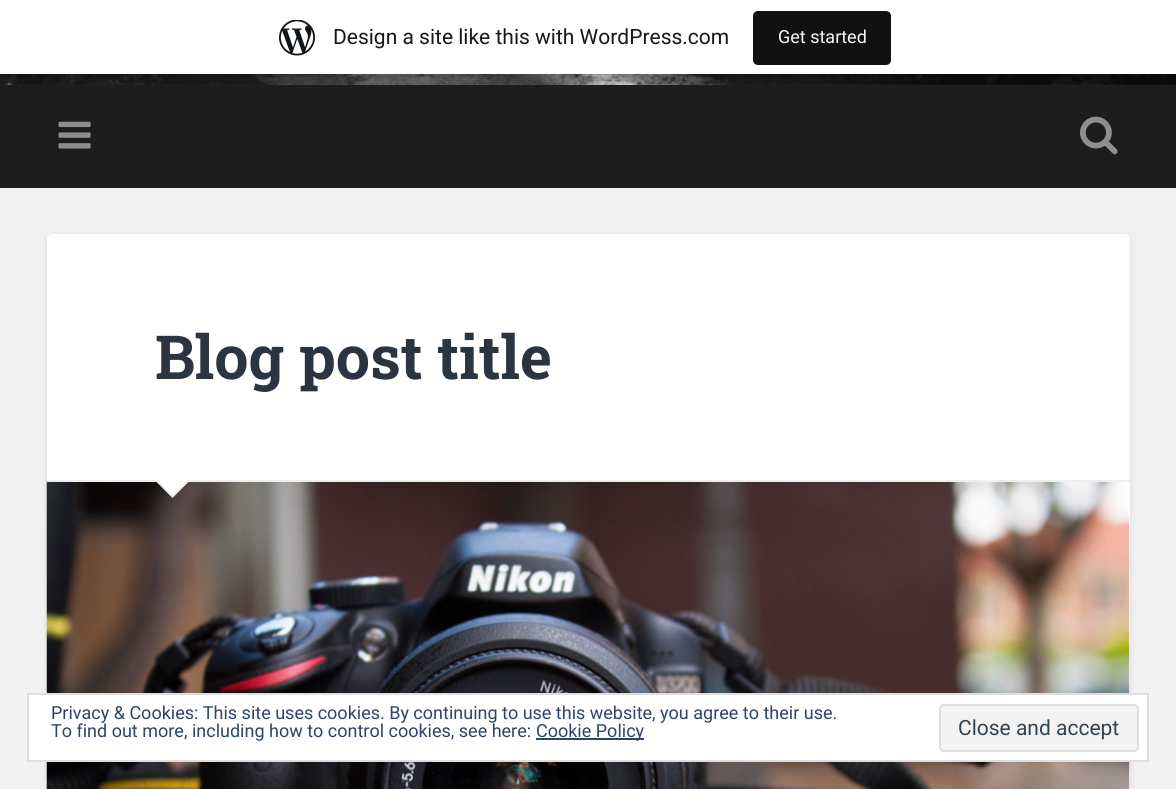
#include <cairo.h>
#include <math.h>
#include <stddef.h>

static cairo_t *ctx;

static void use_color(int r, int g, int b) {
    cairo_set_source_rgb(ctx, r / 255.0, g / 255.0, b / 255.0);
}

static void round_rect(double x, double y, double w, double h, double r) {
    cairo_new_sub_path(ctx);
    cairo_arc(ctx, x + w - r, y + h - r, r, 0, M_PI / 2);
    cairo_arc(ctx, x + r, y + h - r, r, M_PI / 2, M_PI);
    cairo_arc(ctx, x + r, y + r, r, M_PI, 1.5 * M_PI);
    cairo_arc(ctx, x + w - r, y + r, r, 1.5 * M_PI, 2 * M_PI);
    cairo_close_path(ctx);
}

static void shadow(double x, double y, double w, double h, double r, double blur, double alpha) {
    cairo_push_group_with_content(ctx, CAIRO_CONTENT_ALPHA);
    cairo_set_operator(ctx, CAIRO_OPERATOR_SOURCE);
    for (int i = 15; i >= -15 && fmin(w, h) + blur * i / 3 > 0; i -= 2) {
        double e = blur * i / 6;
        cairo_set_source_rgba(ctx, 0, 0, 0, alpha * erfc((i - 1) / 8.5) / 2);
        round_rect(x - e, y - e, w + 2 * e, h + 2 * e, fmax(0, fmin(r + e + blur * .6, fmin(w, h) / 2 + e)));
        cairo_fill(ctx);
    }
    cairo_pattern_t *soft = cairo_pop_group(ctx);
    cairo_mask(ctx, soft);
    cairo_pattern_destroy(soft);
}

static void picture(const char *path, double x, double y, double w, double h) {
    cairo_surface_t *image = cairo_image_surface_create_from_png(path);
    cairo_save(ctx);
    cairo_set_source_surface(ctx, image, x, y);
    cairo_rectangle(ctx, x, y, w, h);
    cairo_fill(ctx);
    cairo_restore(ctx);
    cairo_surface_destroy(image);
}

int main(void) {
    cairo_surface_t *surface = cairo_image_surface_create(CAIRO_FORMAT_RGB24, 1176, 789);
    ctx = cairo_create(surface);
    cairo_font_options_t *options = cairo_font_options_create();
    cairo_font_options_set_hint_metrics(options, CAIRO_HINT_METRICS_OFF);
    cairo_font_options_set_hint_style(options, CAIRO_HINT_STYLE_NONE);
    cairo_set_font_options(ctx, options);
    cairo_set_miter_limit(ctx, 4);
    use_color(241, 241, 241);
    cairo_paint(ctx);
    picture("img2.png", 0, 74, 1176, 11);
    use_color(0, 0, 0);
    shadow(0, 2, 1176, 73, 0, 1.5, 0.05);
    cairo_set_source_rgba(ctx, 0, 0, 0, 0.08);
    cairo_new_path(ctx);
    cairo_move_to(ctx, 2, 74);
    cairo_line_to(ctx, 2, 78);
    cairo_line_to(ctx, 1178, 78);
    cairo_line_to(ctx, 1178, 5);
    cairo_line_to(ctx, 1176, 5);
    cairo_line_to(ctx, 1176, 74);
    cairo_close_path(ctx);
    cairo_fill(ctx);
    use_color(255, 255, 255);
    cairo_rectangle(ctx, 0, 0, 1176, 74);
    cairo_fill(ctx);
    picture("img1.png", 279, 20, 36, 36);
    cairo_select_font_face(ctx, "Roboto", CAIRO_FONT_SLANT_NORMAL, CAIRO_FONT_WEIGHT_NORMAL);
    cairo_set_font_size(ctx, 21);
    use_color(23, 23, 23);
    cairo_move_to(ctx, 333, 44);
    cairo_show_text(ctx, "Design a site like this with WordPress.com");
    use_color(17, 17, 17);
    round_rect(753, 11, 138, 54, 5);
    cairo_fill(ctx);
    cairo_set_font_size(ctx, 18);
    use_color(246, 247, 247);
    cairo_move_to(ctx, 778, 43);
    cairo_show_text(ctx, "Get started");
    use_color(29, 29, 29);
    cairo_rectangle(ctx, 0, 85, 1176, 103);
    cairo_fill(ctx);
    picture("img3.png", 58, 121, 33, 28);
    picture("img4.png", 1080, 116, 38, 39);
    use_color(0, 0, 0);
    shadow(47, 236, 1083, 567, 5, 3, 0.1);
    use_color(255, 255, 255);
    round_rect(47, 234, 1083, 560, 5);
    cairo_fill(ctx);
    picture("img5.png", 46, 481, 1084, 308);
    use_color(238, 238, 238);
    cairo_rectangle(ctx, 47, 480, 1083, 2);
    cairo_fill(ctx);
    cairo_select_font_face(ctx, "Roboto Slab", CAIRO_FONT_SLANT_NORMAL, CAIRO_FONT_WEIGHT_BOLD);
    cairo_set_font_size(ctx, 60.75);
    use_color(43, 53, 66);
    cairo_move_to(ctx, 155, 379);
    cairo_show_text(ctx, "Blog post title");
    use_color(238, 238, 238);
    cairo_new_path(ctx);
    cairo_move_to(ctx, 154.5, 480);
    cairo_line_to(ctx, 190.5, 480);
    cairo_line_to(ctx, 172.5, 498);
    cairo_close_path(ctx);
    cairo_fill(ctx);
    use_color(255, 255, 255);
    cairo_new_path(ctx);
    cairo_move_to(ctx, 156, 478.5);
    cairo_line_to(ctx, 189, 478.5);
    cairo_line_to(ctx, 172.5, 495);
    cairo_close_path(ctx);
    cairo_fill(ctx);
    cairo_rectangle(ctx, 28, 694, 1120, 67);
    cairo_fill_preserve(ctx);
    use_color(222, 222, 222);
    cairo_stroke(ctx);
    cairo_select_font_face(ctx, "Roboto", CAIRO_FONT_SLANT_NORMAL, CAIRO_FONT_WEIGHT_NORMAL);
    cairo_set_font_size(ctx, 18);
    use_color(46, 68, 103);
    cairo_move_to(ctx, 51, 719);
    cairo_show_text(ctx, "Privacy & Cookies: This site uses cookies. By continuing to use this website, you agree to their use.");
    cairo_move_to(ctx, 51, 737);
    cairo_show_text(ctx, "To find out more, including how to control cookies, see here:");
    cairo_rectangle(ctx, 536, 738, 108, 2);
    cairo_fill(ctx);
    cairo_move_to(ctx, 536, 737);
    cairo_show_text(ctx, "Cookie Policy");
    use_color(243, 243, 243);
    round_rect(940, 705, 198, 46, 4);
    cairo_fill_preserve(ctx);
    use_color(222, 222, 222);
    cairo_stroke(ctx);
    cairo_set_font_size(ctx, 21);
    use_color(46, 68, 83);
    cairo_move_to(ctx, 958, 735);
    cairo_show_text(ctx, "Close and accept");
    cairo_surface_write_to_png(surface, "result.png");
    cairo_font_options_destroy(options);
    cairo_destroy(ctx);
    cairo_surface_destroy(surface);
    return 0;
}
